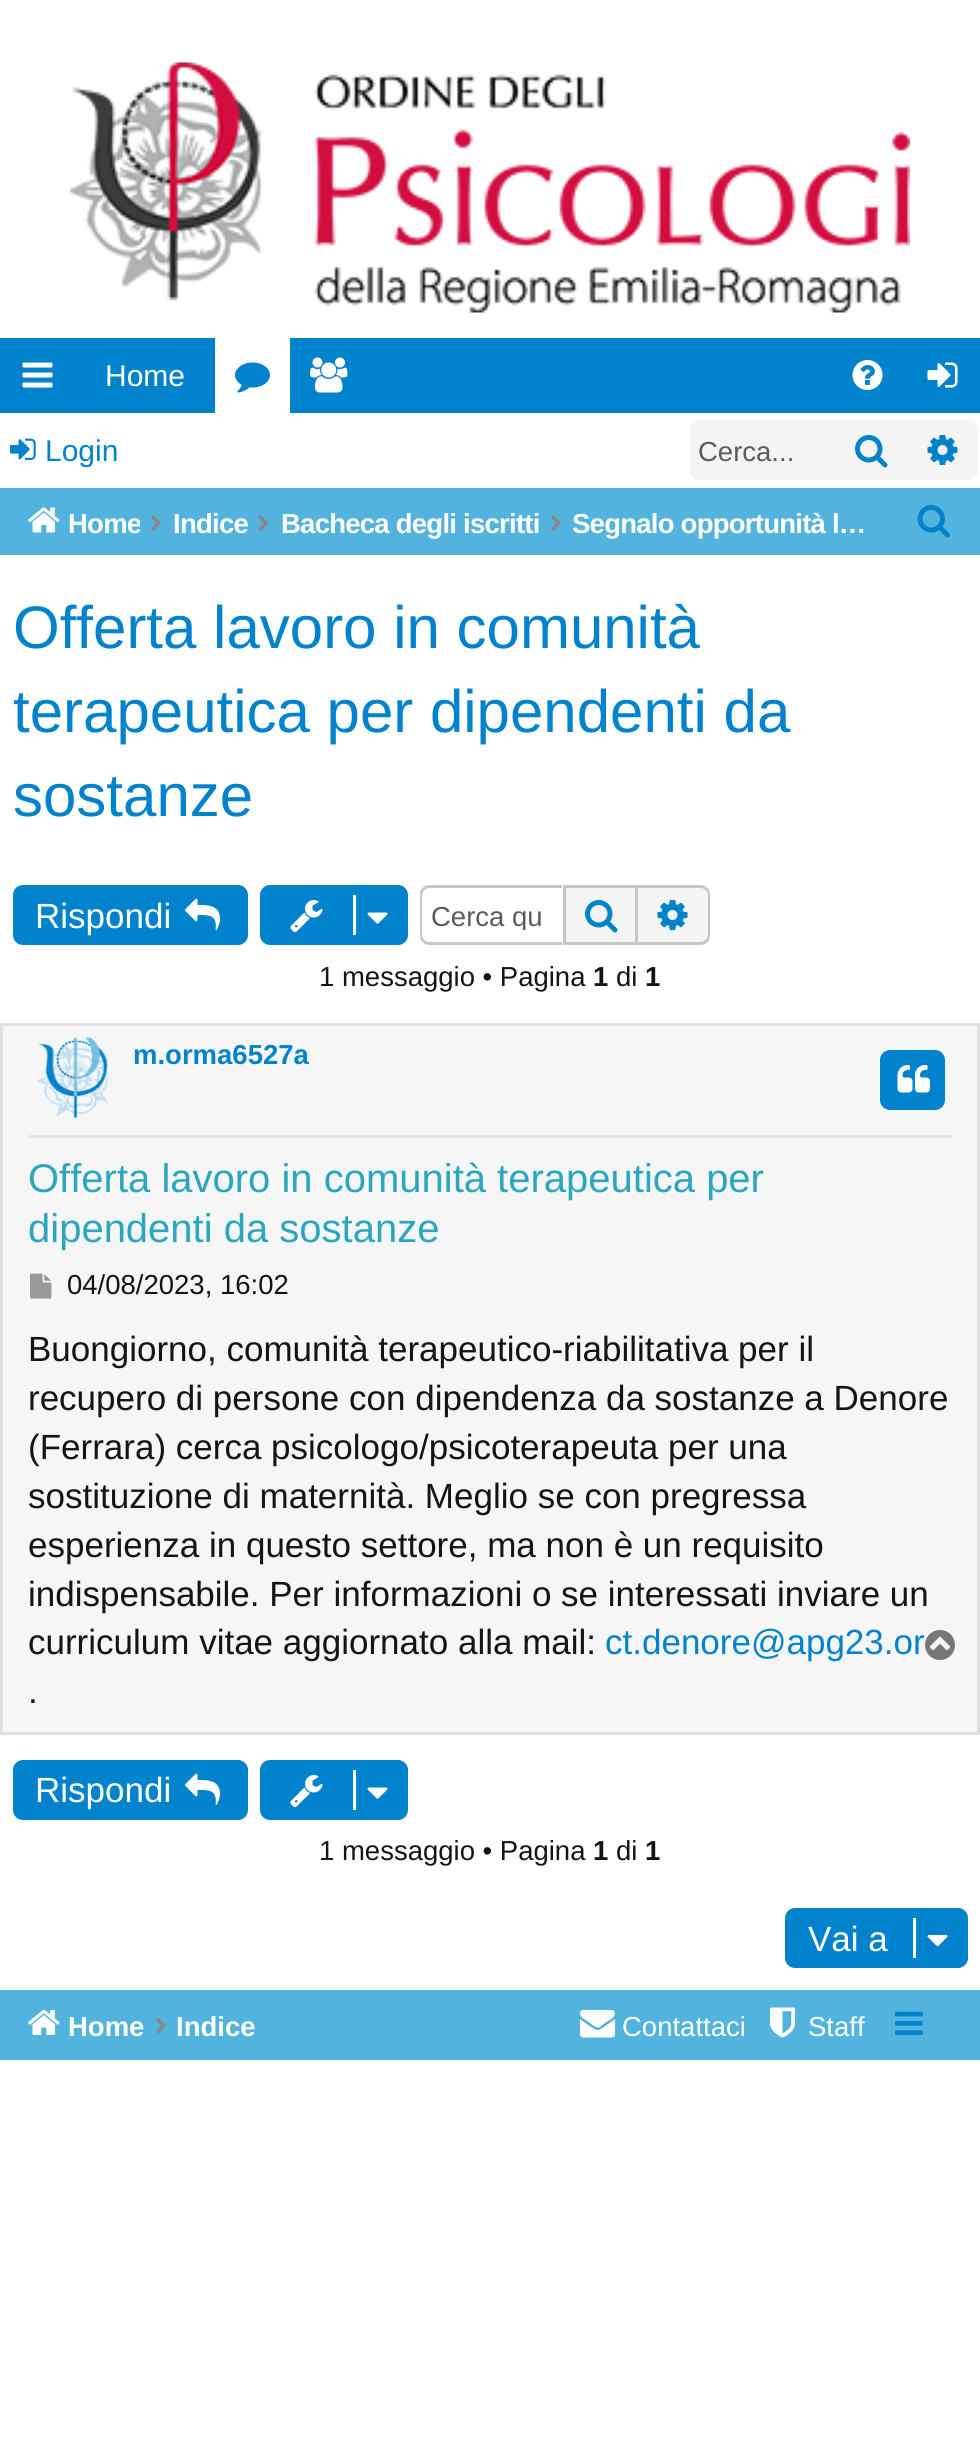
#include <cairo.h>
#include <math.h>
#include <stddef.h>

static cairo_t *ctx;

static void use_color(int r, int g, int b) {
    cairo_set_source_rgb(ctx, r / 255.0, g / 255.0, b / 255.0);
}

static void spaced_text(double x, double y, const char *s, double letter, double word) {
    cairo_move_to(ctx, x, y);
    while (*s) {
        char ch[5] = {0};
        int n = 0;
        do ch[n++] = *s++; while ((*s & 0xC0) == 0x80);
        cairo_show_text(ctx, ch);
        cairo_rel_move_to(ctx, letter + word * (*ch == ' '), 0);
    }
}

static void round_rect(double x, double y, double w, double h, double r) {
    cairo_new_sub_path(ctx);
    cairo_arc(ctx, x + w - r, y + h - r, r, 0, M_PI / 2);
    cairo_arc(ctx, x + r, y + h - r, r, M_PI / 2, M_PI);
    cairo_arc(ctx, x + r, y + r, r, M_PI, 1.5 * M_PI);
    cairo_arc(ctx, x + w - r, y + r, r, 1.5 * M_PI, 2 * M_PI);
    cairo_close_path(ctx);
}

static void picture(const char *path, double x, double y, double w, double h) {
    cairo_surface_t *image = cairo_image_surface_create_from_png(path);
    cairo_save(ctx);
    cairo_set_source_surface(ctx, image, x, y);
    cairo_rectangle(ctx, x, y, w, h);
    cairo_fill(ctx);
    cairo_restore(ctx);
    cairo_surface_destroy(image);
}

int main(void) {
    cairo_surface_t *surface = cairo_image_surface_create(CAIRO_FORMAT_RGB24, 980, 2452);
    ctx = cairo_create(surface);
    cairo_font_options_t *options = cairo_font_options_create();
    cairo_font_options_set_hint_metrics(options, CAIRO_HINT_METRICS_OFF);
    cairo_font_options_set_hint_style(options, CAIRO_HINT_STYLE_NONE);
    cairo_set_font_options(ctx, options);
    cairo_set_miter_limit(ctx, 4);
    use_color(255, 255, 255);
    cairo_paint(ctx);
    picture("img1.png", 70, 62, 840, 251);
    use_color(0, 130, 205);
    cairo_rectangle(ctx, 0, 338, 980, 75);
    cairo_fill(ctx);
    picture("img2.png", 22, 362, 31, 26);
    cairo_select_font_face(ctx, "Liberation Sans", CAIRO_FONT_SLANT_NORMAL, CAIRO_FONT_WEIGHT_NORMAL);
    cairo_set_font_size(ctx, 30);
    use_color(255, 255, 255);
    cairo_move_to(ctx, 105, 386);
    cairo_show_text(ctx, "Home");
    cairo_rectangle(ctx, 215, 338, 75, 75);
    cairo_fill(ctx);
    picture("img3.png", 235, 362, 35, 31);
    picture("img4.png", 310, 357, 38, 36);
    picture("img5.png", 852, 360, 31, 30);
    picture("img6.png", 927, 362, 31, 26);
    picture("img7.png", 10, 438, 26, 22);
    use_color(0, 130, 205);
    cairo_move_to(ctx, 45, 461);
    cairo_show_text(ctx, "Login");
    use_color(244, 244, 244);
    cairo_new_path(ctx);
    cairo_move_to(ctx, 700, 420);
    cairo_line_to(ctx, 833, 420);
    cairo_line_to(ctx, 833, 480);
    cairo_line_to(ctx, 700, 480);
    cairo_curve_to(ctx, 694.5, 480, 690, 475.5, 690, 470);
    cairo_line_to(ctx, 690, 430);
    cairo_curve_to(ctx, 690, 424.5, 694.5, 420, 700, 420);
    cairo_close_path(ctx);
    cairo_fill(ctx);
    cairo_set_font_size(ctx, 27.5);
    use_color(91, 91, 91);
    cairo_move_to(ctx, 698, 461);
    cairo_show_text(ctx, "Cerca...");
    use_color(244, 244, 244);
    cairo_rectangle(ctx, 833, 420, 75, 60);
    cairo_fill(ctx);
    picture("img8.png", 855, 435, 33, 33);
    cairo_new_path(ctx);
    cairo_move_to(ctx, 908, 420);
    cairo_line_to(ctx, 968, 420);
    cairo_curve_to(ctx, 973.5, 420, 978, 424.5, 978, 430);
    cairo_line_to(ctx, 978, 470);
    cairo_curve_to(ctx, 978, 475.5, 973.5, 480, 968, 480);
    cairo_line_to(ctx, 908, 480);
    cairo_close_path(ctx);
    cairo_fill(ctx);
    picture("img9.png", 927, 435, 31, 30);
    use_color(82, 179, 222);
    cairo_rectangle(ctx, 0, 488, 980, 67);
    cairo_fill(ctx);
    picture("img10.png", 28, 507, 32, 26);
    cairo_save(ctx);
    cairo_rectangle(ctx, 23, 495, 117, 55);
    cairo_clip(ctx);
    cairo_select_font_face(ctx, "Liberation Sans", CAIRO_FONT_SLANT_NORMAL, CAIRO_FONT_WEIGHT_BOLD);
    use_color(255, 255, 255);
    spaced_text(68, 533, "Home", -0.75, 0);
    cairo_restore(ctx);
    picture("img11.png", 151, 515, 10, 16);
    cairo_save(ctx);
    cairo_rectangle(ctx, 173, 495, 75, 55);
    cairo_clip(ctx);
    cairo_select_font_face(ctx, "Liberation Sans", CAIRO_FONT_SLANT_NORMAL, CAIRO_FONT_WEIGHT_BOLD);
    use_color(255, 255, 255);
    spaced_text(173, 533, "Indice", -0.75, 0);
    cairo_restore(ctx);
    picture("img12.png", 258, 515, 11, 16);
    cairo_select_font_face(ctx, "Liberation Sans", CAIRO_FONT_SLANT_NORMAL, CAIRO_FONT_WEIGHT_BOLD);
    use_color(255, 255, 255);
    spaced_text(281, 533, "Bacheca degli iscritti", -0.75, 0);
    picture("img11.png", 551, 515, 10, 16);
    spaced_text(572, 533, "Segnalo opportunità l…", -0.75, 0);
    picture("img13.png", 917, 505, 33, 33);
    cairo_select_font_face(ctx, "Liberation Sans", CAIRO_FONT_SLANT_NORMAL, CAIRO_FONT_WEIGHT_NORMAL);
    cairo_set_font_size(ctx, 60);
    use_color(0, 130, 205);
    cairo_move_to(ctx, 13, 648);
    cairo_show_text(ctx, "Offerta lavoro in comunità");
    cairo_move_to(ctx, 13, 732);
    cairo_show_text(ctx, "terapeutica per dipendenti da");
    cairo_move_to(ctx, 13, 816);
    cairo_show_text(ctx, "sostanze");
    round_rect(14.5, 886.5, 232, 57, 8.5);
    cairo_fill_preserve(ctx);
    cairo_set_line_width(ctx, 3);
    cairo_stroke(ctx);
    cairo_set_font_size(ctx, 35);
    use_color(255, 255, 255);
    cairo_move_to(ctx, 35, 928);
    cairo_show_text(ctx, "Rispondi");
    picture("img14.png", 185, 898, 35, 32);
    use_color(0, 130, 205);
    round_rect(261.5, 886.5, 145, 57, 8.5);
    cairo_fill_preserve(ctx);
    cairo_stroke(ctx);
    picture("img15.png", 290, 900, 33, 32);
    use_color(255, 255, 255);
    cairo_rectangle(ctx, 353, 895, 3, 40);
    cairo_fill(ctx);
    picture("img16.png", 367, 912, 21, 12);
    use_color(198, 198, 198);
    cairo_set_fill_rule(ctx, CAIRO_FILL_RULE_EVEN_ODD);
    cairo_new_path(ctx);
    cairo_move_to(ctx, 430, 885);
    cairo_line_to(ctx, 562, 885);
    cairo_line_to(ctx, 562, 945);
    cairo_line_to(ctx, 430, 945);
    cairo_curve_to(ctx, 424, 945, 420, 941, 420, 935);
    cairo_line_to(ctx, 420, 895);
    cairo_curve_to(ctx, 420, 889, 424, 885, 430, 885);
    cairo_close_path(ctx);
    cairo_move_to(ctx, 430, 888);
    cairo_line_to(ctx, 562, 888);
    cairo_line_to(ctx, 562, 942);
    cairo_line_to(ctx, 430, 942);
    cairo_curve_to(ctx, 426, 942, 422, 939, 422, 935);
    cairo_line_to(ctx, 422, 895);
    cairo_curve_to(ctx, 422, 891, 426, 888, 430, 888);
    cairo_close_path(ctx);
    cairo_fill(ctx);
    cairo_save(ctx);
    cairo_set_fill_rule(ctx, CAIRO_FILL_RULE_WINDING);
    cairo_rectangle(ctx, 430, 900, 115, 30);
    cairo_clip(ctx);
    cairo_set_font_size(ctx, 27.5);
    use_color(91, 91, 91);
    cairo_move_to(ctx, 431, 926);
    cairo_show_text(ctx, "Cerca qu");
    cairo_restore(ctx);
    use_color(244, 244, 244);
    cairo_rectangle(ctx, 564.5, 886.5, 72, 57);
    cairo_fill_preserve(ctx);
    use_color(198, 198, 198);
    cairo_stroke(ctx);
    picture("img8.png", 585, 900, 33, 33);
    use_color(244, 244, 244);
    cairo_new_path(ctx);
    cairo_move_to(ctx, 638, 888);
    cairo_line_to(ctx, 700, 888);
    cairo_curve_to(ctx, 704.5, 888, 708, 891.5, 708, 896);
    cairo_line_to(ctx, 708, 935);
    cairo_curve_to(ctx, 708, 939.5, 704.5, 943, 700, 943);
    cairo_line_to(ctx, 638, 943);
    cairo_close_path(ctx);
    cairo_fill(ctx);
    use_color(198, 198, 198);
    cairo_new_path(ctx);
    cairo_move_to(ctx, 638, 885);
    cairo_line_to(ctx, 700, 885);
    cairo_curve_to(ctx, 706, 885, 710, 889, 710, 895);
    cairo_line_to(ctx, 710, 935);
    cairo_curve_to(ctx, 710, 941, 706, 945, 700, 945);
    cairo_line_to(ctx, 638, 945);
    cairo_close_path(ctx);
    cairo_move_to(ctx, 638, 888);
    cairo_line_to(ctx, 700, 888);
    cairo_curve_to(ctx, 704, 888, 708, 891, 708, 895);
    cairo_line_to(ctx, 708, 935);
    cairo_curve_to(ctx, 708, 939, 704, 942, 700, 942);
    cairo_line_to(ctx, 638, 942);
    cairo_close_path(ctx);
    cairo_fill(ctx);
    picture("img9.png", 657, 900, 31, 30);
    cairo_set_font_size(ctx, 27.5);
    use_color(20, 20, 20);
    cairo_move_to(ctx, 319, 986);
    cairo_show_text(ctx, "1 messaggio • Pagina");
    cairo_select_font_face(ctx, "Liberation Sans", CAIRO_FONT_SLANT_NORMAL, CAIRO_FONT_WEIGHT_BOLD);
    cairo_move_to(ctx, 593, 986);
    cairo_show_text(ctx, "1");
    cairo_select_font_face(ctx, "Liberation Sans", CAIRO_FONT_SLANT_NORMAL, CAIRO_FONT_WEIGHT_NORMAL);
    cairo_move_to(ctx, 616, 986);
    cairo_show_text(ctx, "di");
    cairo_select_font_face(ctx, "Liberation Sans", CAIRO_FONT_SLANT_NORMAL, CAIRO_FONT_WEIGHT_BOLD);
    cairo_move_to(ctx, 645, 986);
    cairo_show_text(ctx, "1");
    use_color(246, 246, 246);
    cairo_rectangle(ctx, 1.5, 1024.5, 977, 709);
    cairo_fill_preserve(ctx);
    use_color(224, 224, 224);
    cairo_stroke(ctx);
    use_color(231, 231, 231);
    cairo_rectangle(ctx, 28, 1135, 925, 3);
    cairo_fill(ctx);
    picture("img17.png", 37, 1037, 72, 81);
    use_color(0, 130, 205);
    cairo_move_to(ctx, 133, 1064);
    cairo_show_text(ctx, "m.orma6527a");
    round_rect(881.5, 1051.5, 62, 57, 8.5);
    cairo_fill_preserve(ctx);
    cairo_stroke(ctx);
    picture("img18.png", 897, 1065, 33, 28);
    cairo_select_font_face(ctx, "Liberation Sans", CAIRO_FONT_SLANT_NORMAL, CAIRO_FONT_WEIGHT_NORMAL);
    cairo_set_font_size(ctx, 40);
    use_color(43, 166, 192);
    cairo_move_to(ctx, 28, 1192);
    cairo_show_text(ctx, "Offerta lavoro in comunità terapeutica per");
    cairo_move_to(ctx, 28, 1242);
    cairo_show_text(ctx, "dipendenti da sostanze");
    picture("img19.png", 30, 1273, 22, 26);
    cairo_set_font_size(ctx, 27.5);
    use_color(20, 20, 20);
    cairo_move_to(ctx, 67, 1294);
    cairo_show_text(ctx, "04/08/2023, 16:02");
    cairo_set_font_size(ctx, 35);
    cairo_move_to(ctx, 28, 1361);
    cairo_show_text(ctx, "Buongiorno, comunità terapeutico-riabilitativa per il");
    cairo_move_to(ctx, 28, 1410);
    cairo_show_text(ctx, "recupero di persone con dipendenza da sostanze a Denore");
    cairo_move_to(ctx, 28, 1459);
    cairo_show_text(ctx, "(Ferrara) cerca psicologo/psicoterapeuta per una");
    cairo_move_to(ctx, 28, 1508);
    cairo_show_text(ctx, "sostituzione di maternità. Meglio se con pregressa");
    cairo_move_to(ctx, 28, 1557);
    cairo_show_text(ctx, "esperienza in questo settore, ma non è un requisito");
    cairo_move_to(ctx, 28, 1606);
    cairo_show_text(ctx, "indispensabile. Per informazioni o se interessati inviare un");
    cairo_move_to(ctx, 28, 1654);
    cairo_show_text(ctx, "curriculum vitae aggiornato alla mail:");
    use_color(0, 130, 205);
    cairo_move_to(ctx, 605, 1654);
    cairo_show_text(ctx, "ct.denore@apg23.or");
    use_color(20, 20, 20);
    cairo_move_to(ctx, 28, 1703);
    cairo_show_text(ctx, ".");
    picture("img20.png", 925, 1630, 30, 30);
    use_color(0, 130, 205);
    round_rect(14.5, 1761.5, 232, 57, 8.5);
    cairo_fill_preserve(ctx);
    cairo_stroke(ctx);
    use_color(255, 255, 255);
    cairo_move_to(ctx, 35, 1802);
    cairo_show_text(ctx, "Rispondi");
    picture("img14.png", 185, 1773, 35, 32);
    use_color(0, 130, 205);
    round_rect(261.5, 1761.5, 145, 57, 8.5);
    cairo_fill_preserve(ctx);
    cairo_stroke(ctx);
    picture("img15.png", 290, 1775, 33, 32);
    use_color(255, 255, 255);
    cairo_rectangle(ctx, 353, 1770, 3, 40);
    cairo_fill(ctx);
    picture("img16.png", 367, 1787, 21, 12);
    cairo_set_font_size(ctx, 27.5);
    use_color(20, 20, 20);
    cairo_move_to(ctx, 319, 1860);
    cairo_show_text(ctx, "1 messaggio • Pagina");
    cairo_select_font_face(ctx, "Liberation Sans", CAIRO_FONT_SLANT_NORMAL, CAIRO_FONT_WEIGHT_BOLD);
    cairo_move_to(ctx, 593, 1860);
    cairo_show_text(ctx, "1");
    cairo_select_font_face(ctx, "Liberation Sans", CAIRO_FONT_SLANT_NORMAL, CAIRO_FONT_WEIGHT_NORMAL);
    cairo_move_to(ctx, 616, 1860);
    cairo_show_text(ctx, "di");
    cairo_select_font_face(ctx, "Liberation Sans", CAIRO_FONT_SLANT_NORMAL, CAIRO_FONT_WEIGHT_BOLD);
    cairo_move_to(ctx, 645, 1860);
    cairo_show_text(ctx, "1");
    use_color(0, 130, 205);
    round_rect(786.5, 1909.5, 180, 57, 8.5);
    cairo_fill_preserve(ctx);
    cairo_stroke(ctx);
    cairo_select_font_face(ctx, "Liberation Sans", CAIRO_FONT_SLANT_NORMAL, CAIRO_FONT_WEIGHT_NORMAL);
    cairo_set_font_size(ctx, 35);
    use_color(255, 255, 255);
    cairo_move_to(ctx, 808, 1951);
    cairo_show_text(ctx, "Vai a");
    cairo_rectangle(ctx, 913, 1918, 3, 40);
    cairo_fill(ctx);
    picture("img21.png", 927, 1935, 21, 12);
    use_color(82, 179, 222);
    cairo_rectangle(ctx, 0, 1990, 980, 70);
    cairo_fill(ctx);
    picture("img22.png", 28, 2009, 32, 26);
    cairo_select_font_face(ctx, "Liberation Sans", CAIRO_FONT_SLANT_NORMAL, CAIRO_FONT_WEIGHT_BOLD);
    cairo_set_font_size(ctx, 27.5);
    use_color(255, 255, 255);
    cairo_move_to(ctx, 68, 2036);
    cairo_show_text(ctx, "Home");
    picture("img23.png", 156, 2017, 10, 17);
    cairo_move_to(ctx, 176, 2036);
    cairo_show_text(ctx, "Indice");
    picture("img24.png", 580, 2010, 35, 28);
    cairo_select_font_face(ctx, "Liberation Sans", CAIRO_FONT_SLANT_NORMAL, CAIRO_FONT_WEIGHT_NORMAL);
    cairo_move_to(ctx, 622, 2036);
    cairo_show_text(ctx, "Contattaci");
    picture("img25.png", 770, 2007, 25, 31);
    cairo_move_to(ctx, 808, 2036);
    cairo_show_text(ctx, "Staff");
    picture("img26.png", 895, 2011, 28, 24);
    cairo_surface_write_to_png(surface, "result.png");
    cairo_font_options_destroy(options);
    cairo_destroy(ctx);
    cairo_surface_destroy(surface);
    return 0;
}
